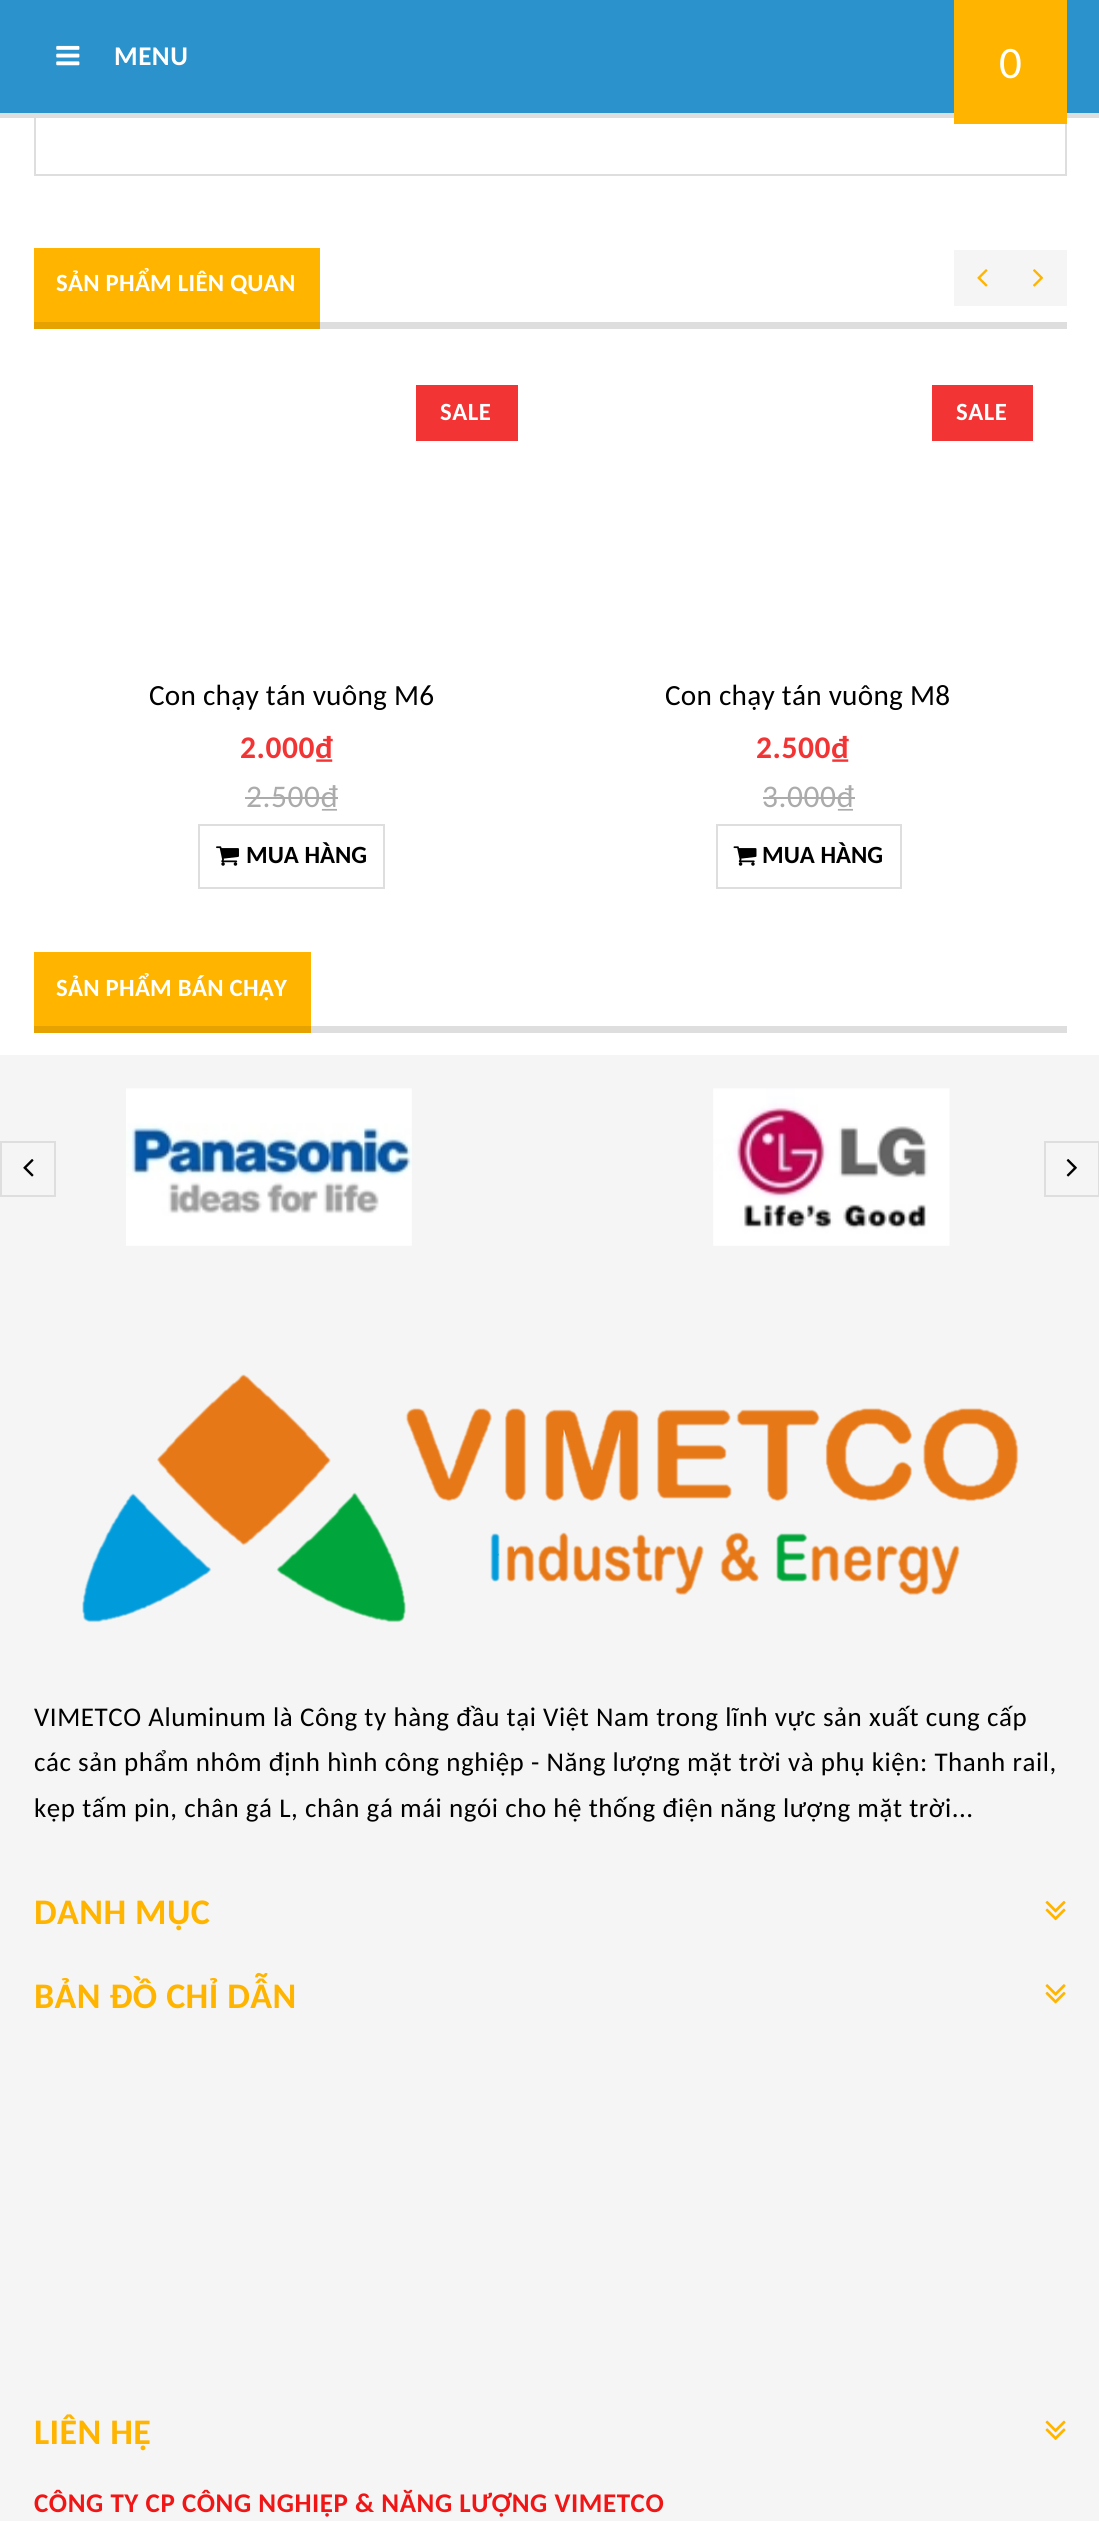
#include <cairo.h>
#include <math.h>
#include <stddef.h>

static cairo_t *ctx;

static void use_color(int r, int g, int b) {
    cairo_set_source_rgb(ctx, r / 255.0, g / 255.0, b / 255.0);
}

static void spaced_text(double x, double y, const char *s, double letter, double word) {
    cairo_move_to(ctx, x, y);
    while (*s) {
        char ch[5] = {0};
        int n = 0;
        do ch[n++] = *s++; while ((*s & 0xC0) == 0x80);
        cairo_show_text(ctx, ch);
        cairo_rel_move_to(ctx, letter + word * (*ch == ' '), 0);
    }
}

static void picture(const char *path, double x, double y, double w, double h) {
    cairo_surface_t *image = cairo_image_surface_create_from_png(path);
    cairo_save(ctx);
    cairo_set_source_surface(ctx, image, x, y);
    cairo_rectangle(ctx, x, y, w, h);
    cairo_fill(ctx);
    cairo_restore(ctx);
    cairo_surface_destroy(image);
}

int main(void) {
    cairo_surface_t *surface = cairo_image_surface_create(CAIRO_FORMAT_RGB24, 1099, 2521);
    ctx = cairo_create(surface);
    cairo_font_options_t *options = cairo_font_options_create();
    cairo_font_options_set_hint_metrics(options, CAIRO_HINT_METRICS_OFF);
    cairo_font_options_set_hint_style(options, CAIRO_HINT_STYLE_NONE);
    cairo_set_font_options(ctx, options);
    cairo_set_miter_limit(ctx, 4);
    use_color(255, 255, 255);
    cairo_paint(ctx);
    cairo_rectangle(ctx, 35, -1, 1031, 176);
    use_color(222, 222, 222);
    cairo_stroke(ctx);
    cairo_rectangle(ctx, 0, 113, 1099, 5);
    cairo_fill(ctx);
    use_color(44, 146, 204);
    cairo_rectangle(ctx, 0, 0, 1099, 113);
    cairo_fill(ctx);
    picture("img1.png", 56, 45, 24, 21);
    cairo_select_font_face(ctx, "Carlito", CAIRO_FONT_SLANT_NORMAL, CAIRO_FONT_WEIGHT_BOLD);
    cairo_set_font_size(ctx, 27);
    use_color(255, 255, 255);
    spaced_text(114, 65, "MENU", 0.55, 0);
    use_color(255, 180, 0);
    cairo_rectangle(ctx, 954, 0, 113, 124);
    cairo_fill(ctx);
    cairo_select_font_face(ctx, "Carlito", CAIRO_FONT_SLANT_NORMAL, CAIRO_FONT_WEIGHT_NORMAL);
    cairo_set_font_size(ctx, 45);
    use_color(255, 255, 255);
    spaced_text(999, 78, "0", 0.55, 0);
    use_color(222, 222, 222);
    cairo_rectangle(ctx, 320, 322, 747, 7);
    cairo_fill(ctx);
    use_color(255, 180, 0);
    cairo_rectangle(ctx, 34, 248, 286, 74);
    cairo_fill(ctx);
    cairo_select_font_face(ctx, "Carlito", CAIRO_FONT_SLANT_NORMAL, CAIRO_FONT_WEIGHT_BOLD);
    cairo_set_font_size(ctx, 24.75);
    use_color(255, 255, 255);
    spaced_text(56, 291, "SẢN PHẨM LIÊN QUAN", 0.25, 0);
    use_color(230, 162, 0);
    cairo_rectangle(ctx, 34, 322, 286, 7);
    cairo_fill(ctx);
    use_color(245, 245, 245);
    cairo_rectangle(ctx, 954, 250, 113, 56);
    cairo_fill(ctx);
    picture("img2.png", 977, 269, 11, 18);
    picture("img3.png", 1033, 269, 11, 18);
    use_color(242, 53, 52);
    cairo_rectangle(ctx, 416, 385, 102, 56);
    cairo_fill(ctx);
    use_color(255, 255, 255);
    spaced_text(440, 420, "SALE", 0.55, 0);
    cairo_select_font_face(ctx, "Carlito", CAIRO_FONT_SLANT_NORMAL, CAIRO_FONT_WEIGHT_NORMAL);
    cairo_set_font_size(ctx, 29.25);
    use_color(0, 0, 0);
    spaced_text(149, 705, "Con chạy tán vuông M6", 0.25, 0);
    cairo_select_font_face(ctx, "Carlito", CAIRO_FONT_SLANT_NORMAL, CAIRO_FONT_WEIGHT_BOLD);
    cairo_set_font_size(ctx, 31.5);
    use_color(242, 53, 52);
    spaced_text(240, 758, "2.000₫", 0.55, 0);
    cairo_select_font_face(ctx, "Carlito", CAIRO_FONT_SLANT_NORMAL, CAIRO_FONT_WEIGHT_NORMAL);
    use_color(171, 171, 171);
    spaced_text(246, 807, "2.500₫", 0.55, 0);
    cairo_rectangle(ctx, 245, 797, 93, 2);
    cairo_fill(ctx);
    cairo_rectangle(ctx, 199, 825, 185, 63);
    use_color(222, 222, 222);
    cairo_stroke(ctx);
    picture("img4.png", 216, 846, 23, 20);
    cairo_select_font_face(ctx, "Carlito", CAIRO_FONT_SLANT_NORMAL, CAIRO_FONT_WEIGHT_BOLD);
    cairo_set_font_size(ctx, 24.75);
    use_color(0, 0, 0);
    cairo_move_to(ctx, 246, 863);
    cairo_show_text(ctx, "MUA HÀNG");
    use_color(242, 53, 52);
    cairo_rectangle(ctx, 932, 385, 101, 56);
    cairo_fill(ctx);
    use_color(255, 255, 255);
    spaced_text(956, 420, "SALE", 0.55, 0);
    cairo_select_font_face(ctx, "Carlito", CAIRO_FONT_SLANT_NORMAL, CAIRO_FONT_WEIGHT_NORMAL);
    cairo_set_font_size(ctx, 29.25);
    use_color(0, 0, 0);
    spaced_text(665, 705, "Con chạy tán vuông M8", 0.25, 0);
    cairo_select_font_face(ctx, "Carlito", CAIRO_FONT_SLANT_NORMAL, CAIRO_FONT_WEIGHT_BOLD);
    cairo_set_font_size(ctx, 31.5);
    use_color(242, 53, 52);
    spaced_text(756, 758, "2.500₫", 0.55, 0);
    cairo_select_font_face(ctx, "Carlito", CAIRO_FONT_SLANT_NORMAL, CAIRO_FONT_WEIGHT_NORMAL);
    use_color(171, 171, 171);
    spaced_text(762, 807, "3.000₫", 0.55, 0);
    cairo_rectangle(ctx, 763, 797, 92, 2);
    cairo_fill(ctx);
    cairo_rectangle(ctx, 717, 825, 184, 63);
    use_color(222, 222, 222);
    cairo_stroke(ctx);
    picture("img5.png", 733, 846, 24, 20);
    cairo_select_font_face(ctx, "Carlito", CAIRO_FONT_SLANT_NORMAL, CAIRO_FONT_WEIGHT_BOLD);
    cairo_set_font_size(ctx, 24.75);
    use_color(0, 0, 0);
    cairo_move_to(ctx, 762, 863);
    cairo_show_text(ctx, "MUA HÀNG");
    use_color(222, 222, 222);
    cairo_rectangle(ctx, 311, 1026, 756, 7);
    cairo_fill(ctx);
    use_color(255, 180, 0);
    cairo_rectangle(ctx, 34, 952, 277, 74);
    cairo_fill(ctx);
    use_color(255, 255, 255);
    spaced_text(56, 996, "SẢN PHẨM BÁN CHẠY", 0.25, 0);
    use_color(230, 162, 0);
    cairo_rectangle(ctx, 34, 1026, 277, 7);
    cairo_fill(ctx);
    use_color(245, 245, 245);
    cairo_rectangle(ctx, 0, 1055, 1099, 1466);
    cairo_fill(ctx);
    picture("img6.png", 126, 1088, 286, 158);
    picture("img7.png", 713, 1088, 237, 158);
    cairo_rectangle(ctx, 1, 1142, 54, 54);
    use_color(222, 222, 222);
    cairo_stroke(ctx);
    picture("img8.png", 23, 1159, 11, 18);
    cairo_rectangle(ctx, 1045, 1142, 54, 54);
    cairo_stroke(ctx);
    picture("img9.png", 1066, 1159, 11, 18);
    picture("img10.png", 82, 1374, 937, 249);
    cairo_select_font_face(ctx, "Carlito", CAIRO_FONT_SLANT_NORMAL, CAIRO_FONT_WEIGHT_NORMAL);
    cairo_set_font_size(ctx, 27);
    use_color(0, 0, 0);
    spaced_text(34, 1726, "VIMETCO Aluminum là Công ty hàng đầu tại Việt Nam trong lĩnh vực sản xuất cung cấp", 0.55, 0);
    spaced_text(34, 1771, "các sản phẩm nhôm định hình công nghiệp - Năng lượng mặt trời và phụ kiện: Thanh rail,", 0.55, 0);
    spaced_text(34, 1817, "kẹp tấm pin, chân gá L, chân gá mái ngói cho hệ thống điện năng lượng mặt trời...", 0.55, 0);
    cairo_select_font_face(ctx, "Carlito", CAIRO_FONT_SLANT_NORMAL, CAIRO_FONT_WEIGHT_BOLD);
    cairo_set_font_size(ctx, 36);
    use_color(255, 180, 0);
    spaced_text(34, 1924, "DANH MỤC", 0.4, 0);
    picture("img11.png", 1045, 1900, 21, 21);
    spaced_text(34, 2008, "BẢN ĐỒ CHỈ DẪN", 0.4, 0);
    picture("img12.png", 1045, 1984, 21, 20);
    spaced_text(34, 2444, "LIÊN HỆ", 0.4, 0);
    picture("img13.png", 1045, 2420, 21, 20);
    cairo_set_font_size(ctx, 27);
    use_color(241, 22, 22);
    spaced_text(34, 2512, "CÔNG TY CP CÔNG NGHIỆP & NĂNG LƯỢNG VIMETCO", 0.55, 0);
    cairo_surface_write_to_png(surface, "result.png");
    cairo_font_options_destroy(options);
    cairo_destroy(ctx);
    cairo_surface_destroy(surface);
    return 0;
}
